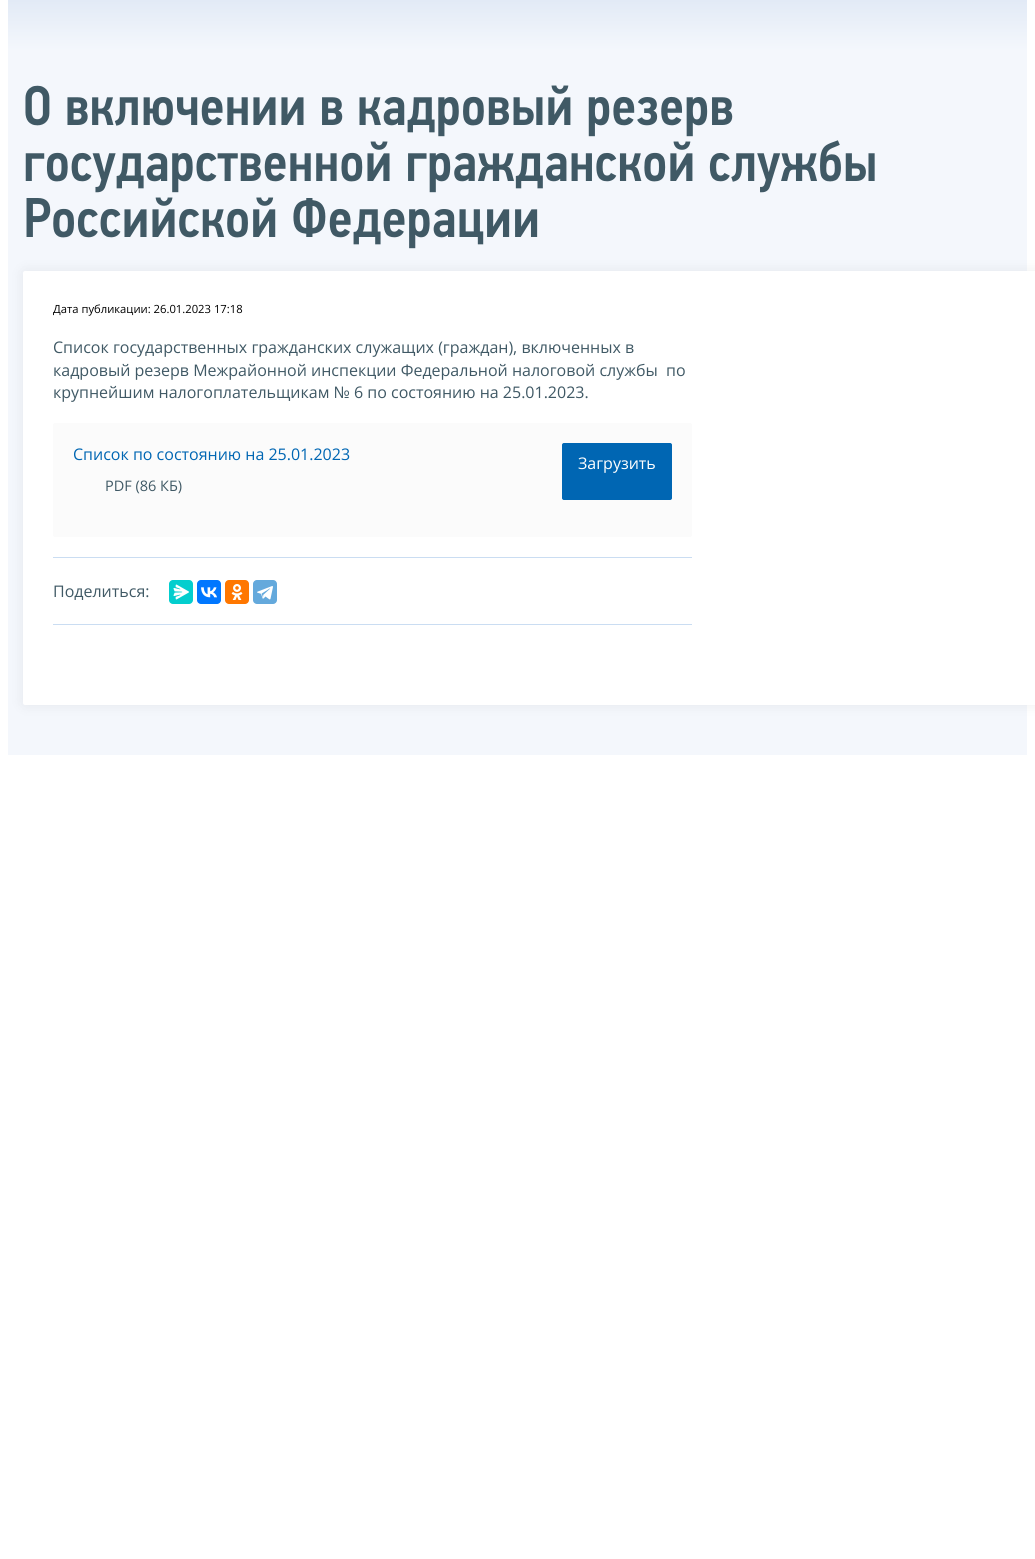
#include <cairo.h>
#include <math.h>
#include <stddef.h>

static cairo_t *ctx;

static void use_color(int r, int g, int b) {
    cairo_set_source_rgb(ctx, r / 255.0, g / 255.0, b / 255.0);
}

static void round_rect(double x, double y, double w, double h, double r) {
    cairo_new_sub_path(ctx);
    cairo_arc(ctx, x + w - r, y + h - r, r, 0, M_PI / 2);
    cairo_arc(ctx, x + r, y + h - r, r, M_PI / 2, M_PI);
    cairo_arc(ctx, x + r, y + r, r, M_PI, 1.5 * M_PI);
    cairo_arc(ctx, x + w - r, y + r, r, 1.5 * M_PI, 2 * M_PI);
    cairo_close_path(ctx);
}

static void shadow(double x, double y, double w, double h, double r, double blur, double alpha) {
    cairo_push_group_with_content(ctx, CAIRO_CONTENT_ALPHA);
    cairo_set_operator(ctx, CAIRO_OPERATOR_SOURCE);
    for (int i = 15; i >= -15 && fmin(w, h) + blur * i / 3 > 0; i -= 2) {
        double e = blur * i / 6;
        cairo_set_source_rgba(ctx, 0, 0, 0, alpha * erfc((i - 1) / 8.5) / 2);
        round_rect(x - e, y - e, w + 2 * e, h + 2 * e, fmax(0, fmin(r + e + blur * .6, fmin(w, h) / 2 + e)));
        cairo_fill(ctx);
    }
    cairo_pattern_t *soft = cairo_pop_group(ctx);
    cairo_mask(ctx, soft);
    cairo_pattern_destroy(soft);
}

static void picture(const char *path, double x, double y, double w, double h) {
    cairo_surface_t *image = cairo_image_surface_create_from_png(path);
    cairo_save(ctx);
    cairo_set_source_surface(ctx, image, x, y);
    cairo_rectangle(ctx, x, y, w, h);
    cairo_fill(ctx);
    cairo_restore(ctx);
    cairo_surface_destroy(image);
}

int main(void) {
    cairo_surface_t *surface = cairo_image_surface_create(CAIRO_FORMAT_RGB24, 1035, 1559);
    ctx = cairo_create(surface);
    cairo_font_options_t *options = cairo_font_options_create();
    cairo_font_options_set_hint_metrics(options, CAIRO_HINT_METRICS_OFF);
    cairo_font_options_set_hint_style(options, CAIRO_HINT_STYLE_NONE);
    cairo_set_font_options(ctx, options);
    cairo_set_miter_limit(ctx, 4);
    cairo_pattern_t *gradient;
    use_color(255, 255, 255);
    cairo_paint(ctx);
    use_color(244, 247, 252);
    cairo_rectangle(ctx, 8, 50, 1019, 705);
    cairo_fill(ctx);
    gradient = cairo_pattern_create_linear(518, 0, 518, 50);
    cairo_pattern_add_color_stop_rgba(gradient, 0, 0.886, 0.918, 0.965, 1);
    cairo_pattern_add_color_stop_rgba(gradient, 1, 0.957, 0.969, 0.988, 1);
    cairo_set_source(ctx, gradient);
    cairo_pattern_destroy(gradient);
    cairo_rectangle(ctx, 8, 0, 1019, 50);
    cairo_fill(ctx);
    picture("img1.png", 25, 85, 708, 52);
    picture("img2.png", 25, 140, 850, 53);
    use_color(0, 0, 0);
    shadow(23, 271, 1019, 434, 2, 7.5, 0.07);
    picture("img3.png", 26, 197, 512, 52);
    use_color(255, 255, 255);
    round_rect(23, 271, 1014, 434, 2);
    cairo_fill(ctx);
    cairo_select_font_face(ctx, "Open Sans", CAIRO_FONT_SLANT_NORMAL, CAIRO_FONT_WEIGHT_NORMAL);
    cairo_set_font_size(ctx, 11.25);
    use_color(0, 0, 0);
    cairo_move_to(ctx, 53, 313);
    cairo_show_text(ctx, "Дата публикации: 26.01.2023 17:18");
    cairo_set_font_size(ctx, 16);
    use_color(64, 89, 101);
    cairo_move_to(ctx, 53, 353);
    cairo_show_text(ctx, "Список государственных гражданских служащих (граждан), включенных в");
    cairo_move_to(ctx, 53, 376);
    cairo_show_text(ctx, "кадровый резерв Межрайонной инспекции Федеральной налоговой службы  по");
    cairo_move_to(ctx, 53, 398);
    cairo_show_text(ctx, "крупнейшим налогоплательщикам № 6 по состоянию на 25.01.2023.");
    use_color(251, 251, 251);
    round_rect(53, 423, 639, 114, 2);
    cairo_fill(ctx);
    use_color(0, 102, 179);
    cairo_move_to(ctx, 73, 460);
    cairo_show_text(ctx, "Список по состоянию на 25.01.2023");
    cairo_set_font_size(ctx, 14.5);
    use_color(64, 89, 101);
    cairo_move_to(ctx, 105, 491);
    cairo_show_text(ctx, "PDF (86 КБ)");
    use_color(0, 102, 179);
    round_rect(562.5, 443.5, 109, 56, 1.5);
    cairo_fill_preserve(ctx);
    cairo_set_line_width(ctx, 1);
    cairo_stroke(ctx);
    cairo_set_font_size(ctx, 16);
    use_color(255, 255, 255);
    cairo_move_to(ctx, 578, 469);
    cairo_show_text(ctx, "Загрузить");
    use_color(202, 221, 242);
    cairo_rectangle(ctx, 53, 557, 639, 1);
    cairo_fill(ctx);
    cairo_rectangle(ctx, 53, 624, 639, 1);
    cairo_fill(ctx);
    use_color(64, 89, 101);
    cairo_move_to(ctx, 53, 597);
    cairo_show_text(ctx, "Поделиться:");
    use_color(3, 206, 206);
    round_rect(169, 580, 24, 24, 4);
    cairo_fill(ctx);
    picture("img4.png", 173, 584, 16, 16);
    use_color(0, 119, 255);
    round_rect(197, 580, 24, 24, 4);
    cairo_fill(ctx);
    picture("img5.png", 201, 587, 16, 11);
    use_color(255, 119, 0);
    round_rect(225, 580, 24, 24, 4);
    cairo_fill(ctx);
    picture("img6.png", 231, 584, 12, 16);
    use_color(100, 169, 220);
    round_rect(253, 580, 24, 24, 4);
    cairo_fill(ctx);
    picture("img7.png", 257, 586, 16, 14);
    cairo_surface_write_to_png(surface, "result.png");
    cairo_font_options_destroy(options);
    cairo_destroy(ctx);
    cairo_surface_destroy(surface);
    return 0;
}
